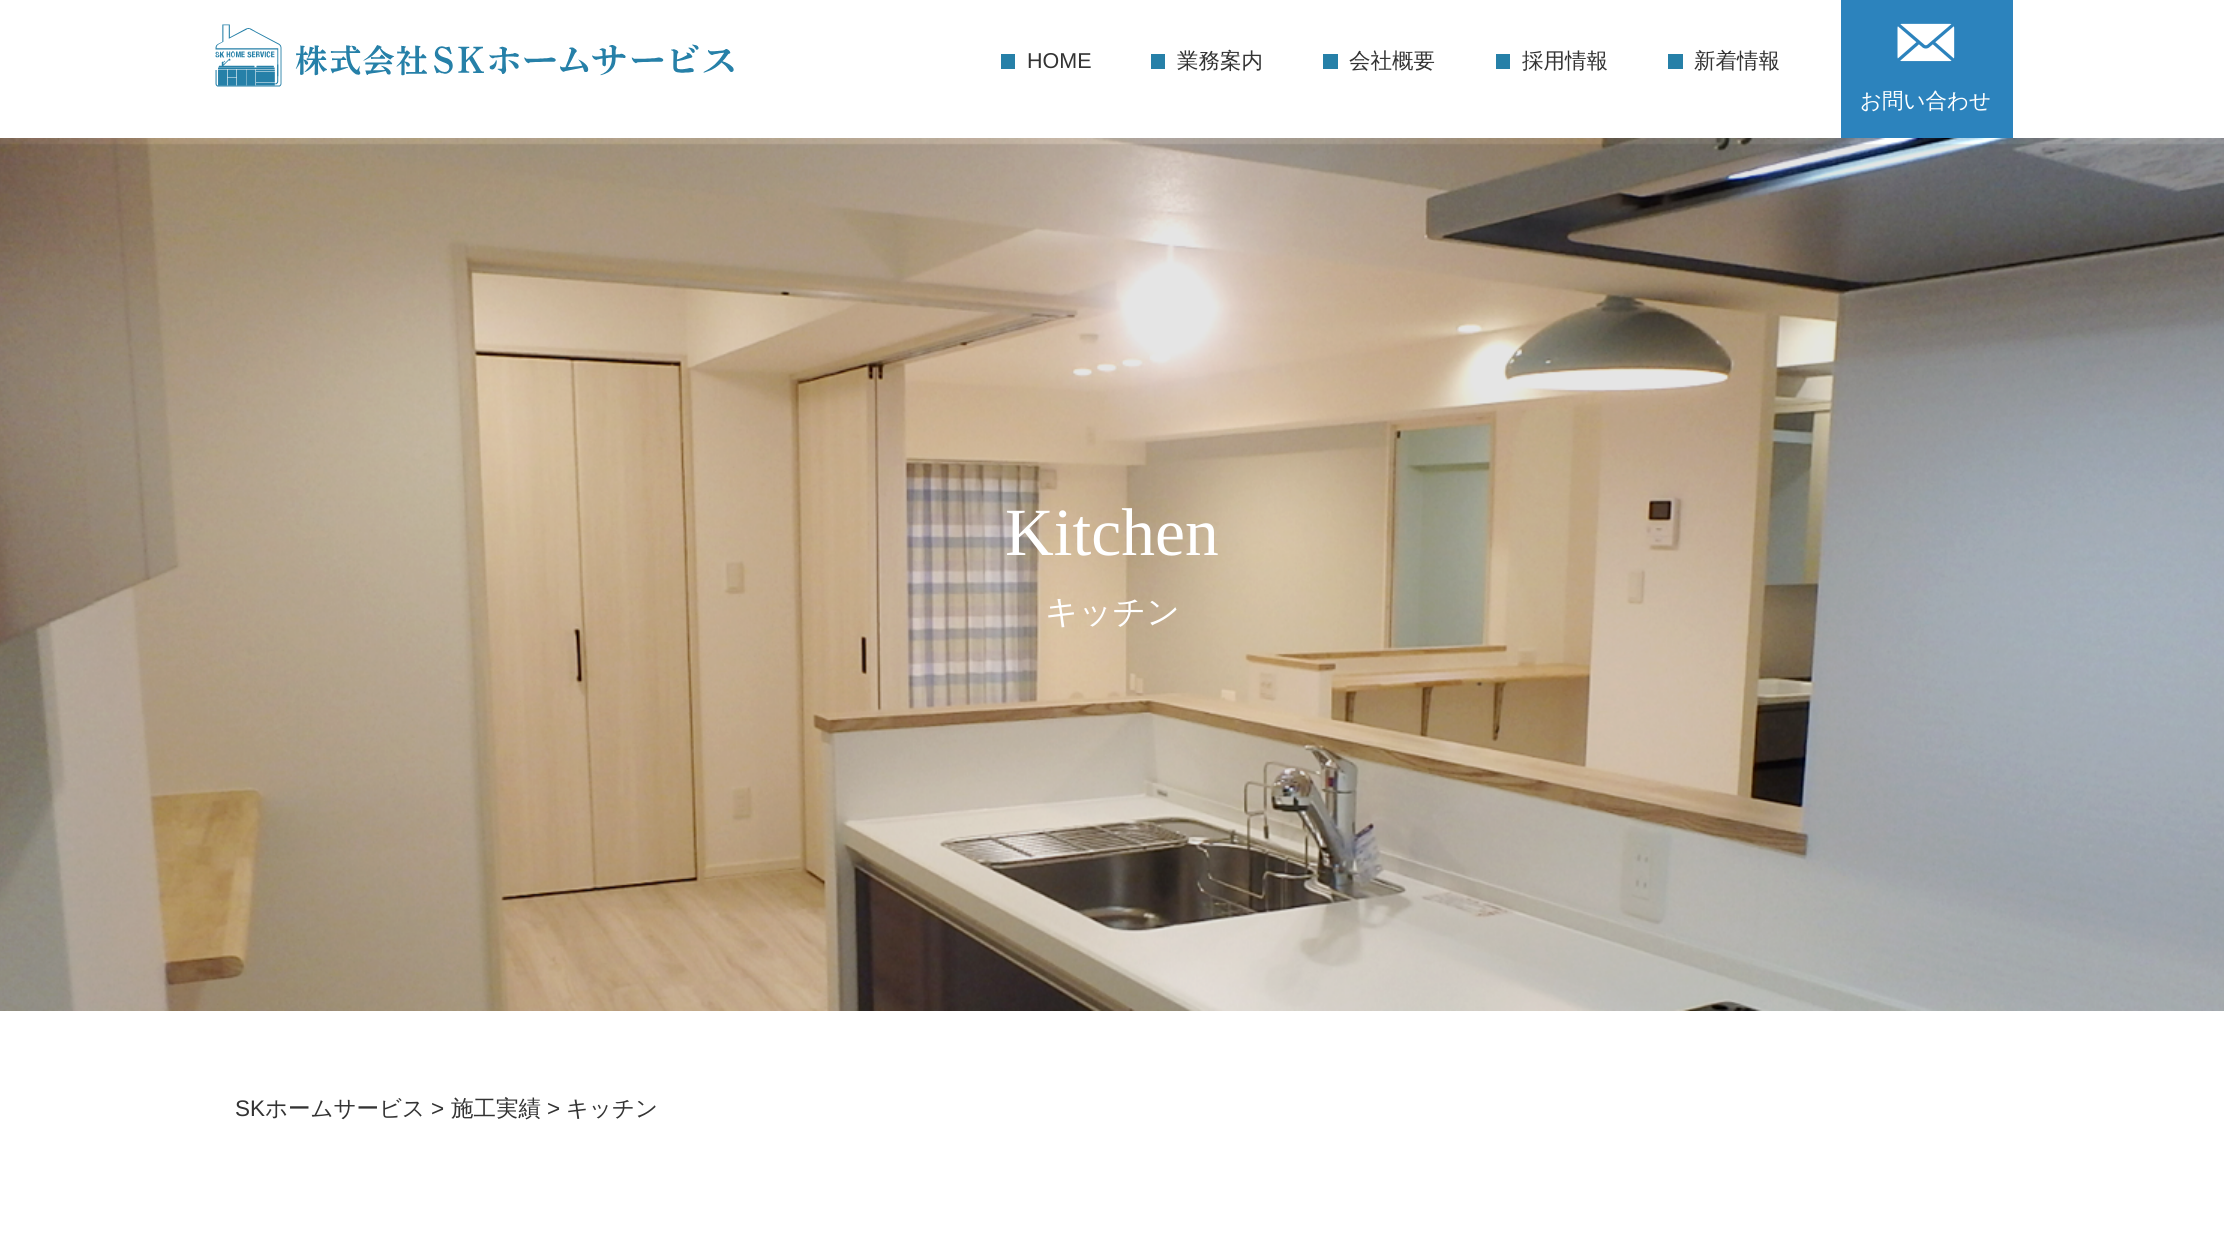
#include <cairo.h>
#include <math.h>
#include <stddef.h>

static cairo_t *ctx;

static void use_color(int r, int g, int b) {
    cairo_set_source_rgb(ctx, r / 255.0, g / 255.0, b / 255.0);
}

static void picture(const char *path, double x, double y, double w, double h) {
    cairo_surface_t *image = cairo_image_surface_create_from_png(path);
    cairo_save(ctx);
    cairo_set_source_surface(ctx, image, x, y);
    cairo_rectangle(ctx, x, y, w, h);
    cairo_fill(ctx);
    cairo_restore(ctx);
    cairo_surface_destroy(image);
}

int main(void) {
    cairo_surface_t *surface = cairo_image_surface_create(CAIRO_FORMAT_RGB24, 2224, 1240);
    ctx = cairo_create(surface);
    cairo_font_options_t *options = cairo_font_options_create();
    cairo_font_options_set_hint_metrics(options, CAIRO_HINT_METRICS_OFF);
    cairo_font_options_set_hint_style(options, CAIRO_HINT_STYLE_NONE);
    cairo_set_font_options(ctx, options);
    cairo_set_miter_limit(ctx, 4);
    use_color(255, 255, 255);
    cairo_paint(ctx);
    picture("img1.png", 215, 24, 519, 63);
    use_color(38, 128, 168);
    cairo_rectangle(ctx, 1001, 54, 14, 15);
    cairo_fill(ctx);
    cairo_select_font_face(ctx, "Liberation Sans", CAIRO_FONT_SLANT_NORMAL, CAIRO_FONT_WEIGHT_NORMAL);
    cairo_set_font_size(ctx, 21.5);
    use_color(51, 51, 51);
    cairo_move_to(ctx, 1027, 68);
    cairo_show_text(ctx, "HOME");
    use_color(38, 128, 168);
    cairo_rectangle(ctx, 1151, 54, 14, 15);
    cairo_fill(ctx);
    cairo_select_font_face(ctx, "WenQuanYi Zen Hei Medium", CAIRO_FONT_SLANT_NORMAL, CAIRO_FONT_WEIGHT_NORMAL);
    use_color(51, 51, 51);
    cairo_move_to(ctx, 1177, 68);
    cairo_show_text(ctx, "業務案内");
    use_color(38, 128, 168);
    cairo_rectangle(ctx, 1323, 54, 15, 15);
    cairo_fill(ctx);
    use_color(51, 51, 51);
    cairo_move_to(ctx, 1349, 68);
    cairo_show_text(ctx, "会社概要");
    use_color(38, 128, 168);
    cairo_rectangle(ctx, 1496, 54, 14, 15);
    cairo_fill(ctx);
    use_color(51, 51, 51);
    cairo_move_to(ctx, 1522, 68);
    cairo_show_text(ctx, "採用情報");
    use_color(38, 128, 168);
    cairo_rectangle(ctx, 1668, 54, 15, 15);
    cairo_fill(ctx);
    use_color(51, 51, 51);
    cairo_move_to(ctx, 1694, 68);
    cairo_show_text(ctx, "新着情報");
    use_color(44, 131, 189);
    cairo_rectangle(ctx, 1841, 0, 172, 138);
    cairo_fill(ctx);
    picture("img2.png", 1897, 23, 58, 39);
    use_color(255, 255, 255);
    cairo_move_to(ctx, 1860, 108);
    cairo_show_text(ctx, "お問い合わせ");
    picture("img3.png", 0, 138, 2224, 873);
    cairo_select_font_face(ctx, "Liberation Serif", CAIRO_FONT_SLANT_NORMAL, CAIRO_FONT_WEIGHT_NORMAL);
    cairo_set_font_size(ctx, 67.5);
    cairo_move_to(ctx, 1005, 555);
    cairo_show_text(ctx, "Kitchen");
    cairo_select_font_face(ctx, "WenQuanYi Zen Hei Medium", CAIRO_FONT_SLANT_NORMAL, CAIRO_FONT_WEIGHT_NORMAL);
    cairo_set_font_size(ctx, 33);
    cairo_move_to(ctx, 1045, 623);
    cairo_show_text(ctx, "キッチン");
    cairo_select_font_face(ctx, "Liberation Sans", CAIRO_FONT_SLANT_NORMAL, CAIRO_FONT_WEIGHT_NORMAL);
    cairo_set_font_size(ctx, 22.5);
    use_color(51, 51, 51);
    cairo_move_to(ctx, 235, 1116);
    cairo_show_text(ctx, "SK");
    cairo_select_font_face(ctx, "WenQuanYi Zen Hei Medium", CAIRO_FONT_SLANT_NORMAL, CAIRO_FONT_WEIGHT_NORMAL);
    cairo_move_to(ctx, 265, 1116);
    cairo_show_text(ctx, "ホームサービス");
    cairo_select_font_face(ctx, "Liberation Sans", CAIRO_FONT_SLANT_NORMAL, CAIRO_FONT_WEIGHT_NORMAL);
    cairo_move_to(ctx, 431, 1116);
    cairo_show_text(ctx, ">");
    cairo_select_font_face(ctx, "WenQuanYi Zen Hei Medium", CAIRO_FONT_SLANT_NORMAL, CAIRO_FONT_WEIGHT_NORMAL);
    cairo_move_to(ctx, 451, 1116);
    cairo_show_text(ctx, "施工実績");
    cairo_select_font_face(ctx, "Liberation Sans", CAIRO_FONT_SLANT_NORMAL, CAIRO_FONT_WEIGHT_NORMAL);
    cairo_move_to(ctx, 547, 1116);
    cairo_show_text(ctx, ">");
    cairo_select_font_face(ctx, "WenQuanYi Zen Hei Medium", CAIRO_FONT_SLANT_NORMAL, CAIRO_FONT_WEIGHT_NORMAL);
    cairo_move_to(ctx, 566, 1116);
    cairo_show_text(ctx, "キッチン");
    cairo_surface_write_to_png(surface, "result.png");
    cairo_font_options_destroy(options);
    cairo_destroy(ctx);
    cairo_surface_destroy(surface);
    return 0;
}
